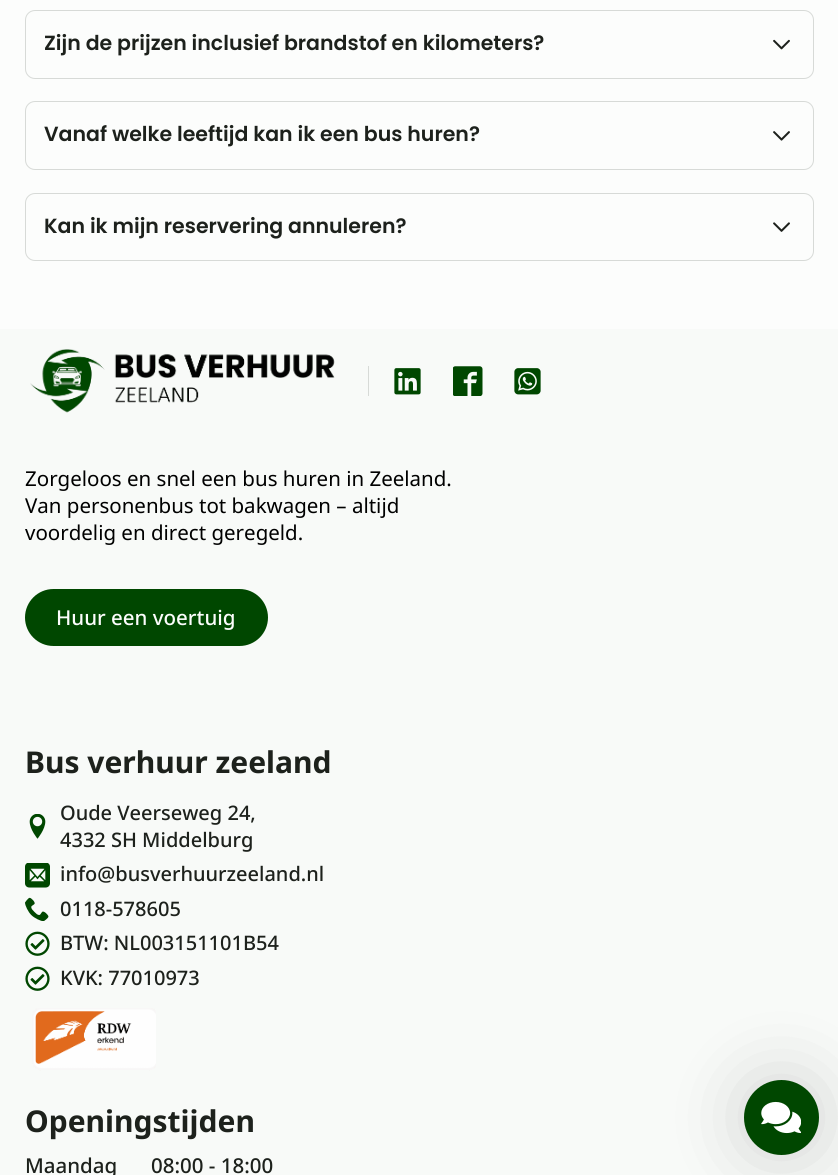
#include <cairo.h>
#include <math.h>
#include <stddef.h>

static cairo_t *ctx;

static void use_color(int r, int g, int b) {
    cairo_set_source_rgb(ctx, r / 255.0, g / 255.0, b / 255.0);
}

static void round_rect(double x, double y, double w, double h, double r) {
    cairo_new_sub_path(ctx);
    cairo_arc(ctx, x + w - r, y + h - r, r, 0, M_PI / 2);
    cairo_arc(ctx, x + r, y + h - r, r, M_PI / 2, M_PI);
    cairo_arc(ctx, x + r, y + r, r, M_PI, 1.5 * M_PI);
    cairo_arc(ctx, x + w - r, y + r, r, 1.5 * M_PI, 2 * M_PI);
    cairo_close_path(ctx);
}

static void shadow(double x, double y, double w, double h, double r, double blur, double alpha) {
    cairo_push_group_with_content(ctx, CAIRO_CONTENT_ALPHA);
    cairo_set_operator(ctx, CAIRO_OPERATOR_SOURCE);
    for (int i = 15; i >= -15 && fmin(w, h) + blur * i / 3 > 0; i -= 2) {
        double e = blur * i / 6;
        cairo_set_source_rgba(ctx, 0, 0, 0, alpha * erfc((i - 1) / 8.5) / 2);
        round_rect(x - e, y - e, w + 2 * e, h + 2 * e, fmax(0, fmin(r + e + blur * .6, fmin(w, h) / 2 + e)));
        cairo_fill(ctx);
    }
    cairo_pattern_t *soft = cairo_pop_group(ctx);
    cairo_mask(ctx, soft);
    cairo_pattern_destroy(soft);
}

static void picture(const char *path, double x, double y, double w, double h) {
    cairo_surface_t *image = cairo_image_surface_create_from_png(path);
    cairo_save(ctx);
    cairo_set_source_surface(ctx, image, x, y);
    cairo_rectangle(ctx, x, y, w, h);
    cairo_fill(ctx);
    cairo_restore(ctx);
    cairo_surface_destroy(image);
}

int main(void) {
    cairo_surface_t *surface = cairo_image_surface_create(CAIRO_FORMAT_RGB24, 838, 1175);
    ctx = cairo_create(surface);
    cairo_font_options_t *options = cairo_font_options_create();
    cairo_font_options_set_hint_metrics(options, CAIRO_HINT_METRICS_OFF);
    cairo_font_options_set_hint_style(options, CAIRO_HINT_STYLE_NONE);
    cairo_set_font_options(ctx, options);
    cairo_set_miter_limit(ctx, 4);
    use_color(252, 253, 252);
    cairo_paint(ctx);
    round_rect(25.5, 10.5, 788, 68, 9.5);
    use_color(215, 218, 215);
    cairo_set_line_width(ctx, 1);
    cairo_stroke(ctx);
    cairo_select_font_face(ctx, "Poppins SemiBold", CAIRO_FONT_SLANT_NORMAL, CAIRO_FONT_WEIGHT_NORMAL);
    cairo_set_font_size(ctx, 20.5);
    use_color(29, 33, 28);
    cairo_move_to(ctx, 44, 50);
    cairo_show_text(ctx, "Zijn de prijzen inclusief brandstof en kilometers?");
    picture("img1.png", 773, 39, 17, 11);
    round_rect(25.5, 101.5, 788, 68, 9.5);
    use_color(215, 218, 215);
    cairo_stroke(ctx);
    use_color(29, 33, 28);
    cairo_move_to(ctx, 44, 141);
    cairo_show_text(ctx, "Vanaf welke leeftijd kan ik een bus huren?");
    picture("img2.png", 773, 131, 17, 10);
    round_rect(25.5, 193.5, 788, 67, 9.5);
    use_color(215, 218, 215);
    cairo_stroke(ctx);
    use_color(29, 33, 28);
    cairo_move_to(ctx, 44, 233);
    cairo_show_text(ctx, "Kan ik mijn reservering annuleren?");
    picture("img3.png", 773, 222, 17, 10);
    use_color(248, 250, 248);
    cairo_rectangle(ctx, 0, 329, 838, 846);
    cairo_fill(ctx);
    picture("img4.png", 30, 349, 305, 64);
    use_color(215, 218, 215);
    cairo_rectangle(ctx, 368, 366, 1, 30);
    cairo_fill(ctx);
    picture("img5.png", 394, 368, 27, 27);
    picture("img6.png", 453, 366, 30, 30);
    picture("img7.png", 514, 368, 27, 27);
    cairo_select_font_face(ctx, "Noto Sans", CAIRO_FONT_SLANT_NORMAL, CAIRO_FONT_WEIGHT_NORMAL);
    use_color(0, 0, 0);
    cairo_move_to(ctx, 25, 486);
    cairo_show_text(ctx, "Zorgeloos en snel een bus huren in Zeeland.");
    cairo_move_to(ctx, 25, 513);
    cairo_show_text(ctx, "Van personenbus tot bakwagen – altijd");
    cairo_move_to(ctx, 25, 540);
    cairo_show_text(ctx, "voordelig en direct geregeld.");
    use_color(0, 71, 0);
    round_rect(25, 589, 243, 57, 28.5);
    cairo_fill(ctx);
    cairo_select_font_face(ctx, "Noto Sans Medium", CAIRO_FONT_SLANT_NORMAL, CAIRO_FONT_WEIGHT_NORMAL);
    use_color(252, 253, 252);
    cairo_move_to(ctx, 56, 625);
    cairo_show_text(ctx, "Huur een voertuig");
    cairo_select_font_face(ctx, "Noto Sans", CAIRO_FONT_SLANT_NORMAL, CAIRO_FONT_WEIGHT_BOLD);
    cairo_set_font_size(ctx, 30);
    use_color(29, 33, 28);
    cairo_move_to(ctx, 25, 773);
    cairo_show_text(ctx, "Bus verhuur zeeland");
    picture("img8.png", 29, 814, 17, 25);
    cairo_select_font_face(ctx, "Noto Sans Medium", CAIRO_FONT_SLANT_NORMAL, CAIRO_FONT_WEIGHT_NORMAL);
    cairo_set_font_size(ctx, 20);
    cairo_move_to(ctx, 60, 820);
    cairo_show_text(ctx, "Oude Veerseweg 24,");
    cairo_move_to(ctx, 60, 847);
    cairo_show_text(ctx, "4332 SH Middelburg");
    picture("img9.png", 25, 863, 25, 25);
    cairo_move_to(ctx, 60, 881);
    cairo_show_text(ctx, "info@busverhuurzeeland.nl");
    picture("img10.png", 25, 897, 24, 24);
    cairo_move_to(ctx, 60, 916);
    cairo_show_text(ctx, "0118-578605");
    picture("img11.png", 25, 931, 25, 25);
    cairo_move_to(ctx, 60, 950);
    cairo_show_text(ctx, "BTW: NL003151101B54");
    picture("img11.png", 25, 966, 25, 25);
    cairo_move_to(ctx, 60, 985);
    cairo_show_text(ctx, "KVK: 77010973");
    picture("img12.png", 32, 1008, 124, 63);
    cairo_select_font_face(ctx, "Noto Sans", CAIRO_FONT_SLANT_NORMAL, CAIRO_FONT_WEIGHT_BOLD);
    cairo_set_font_size(ctx, 30);
    cairo_move_to(ctx, 25, 1132);
    cairo_show_text(ctx, "Openingstijden");
    cairo_select_font_face(ctx, "Noto Sans Medium", CAIRO_FONT_SLANT_NORMAL, CAIRO_FONT_WEIGHT_NORMAL);
    cairo_set_font_size(ctx, 20.5);
    cairo_move_to(ctx, 25, 1173);
    cairo_show_text(ctx, "Maandag");
    cairo_move_to(ctx, 151, 1173);
    cairo_show_text(ctx, "08:00 - 18:00");
    use_color(0, 0, 0);
    shadow(744, 1080, 75, 75, 37.5, 37.5, 0.15);
    use_color(0, 71, 0);
    cairo_arc(ctx, 781.5, 1117.5, 37.5, 0, 2 * M_PI);
    cairo_fill(ctx);
    picture("img13.png", 761, 1101, 40, 33);
    cairo_surface_write_to_png(surface, "result.png");
    cairo_font_options_destroy(options);
    cairo_destroy(ctx);
    cairo_surface_destroy(surface);
    return 0;
}
